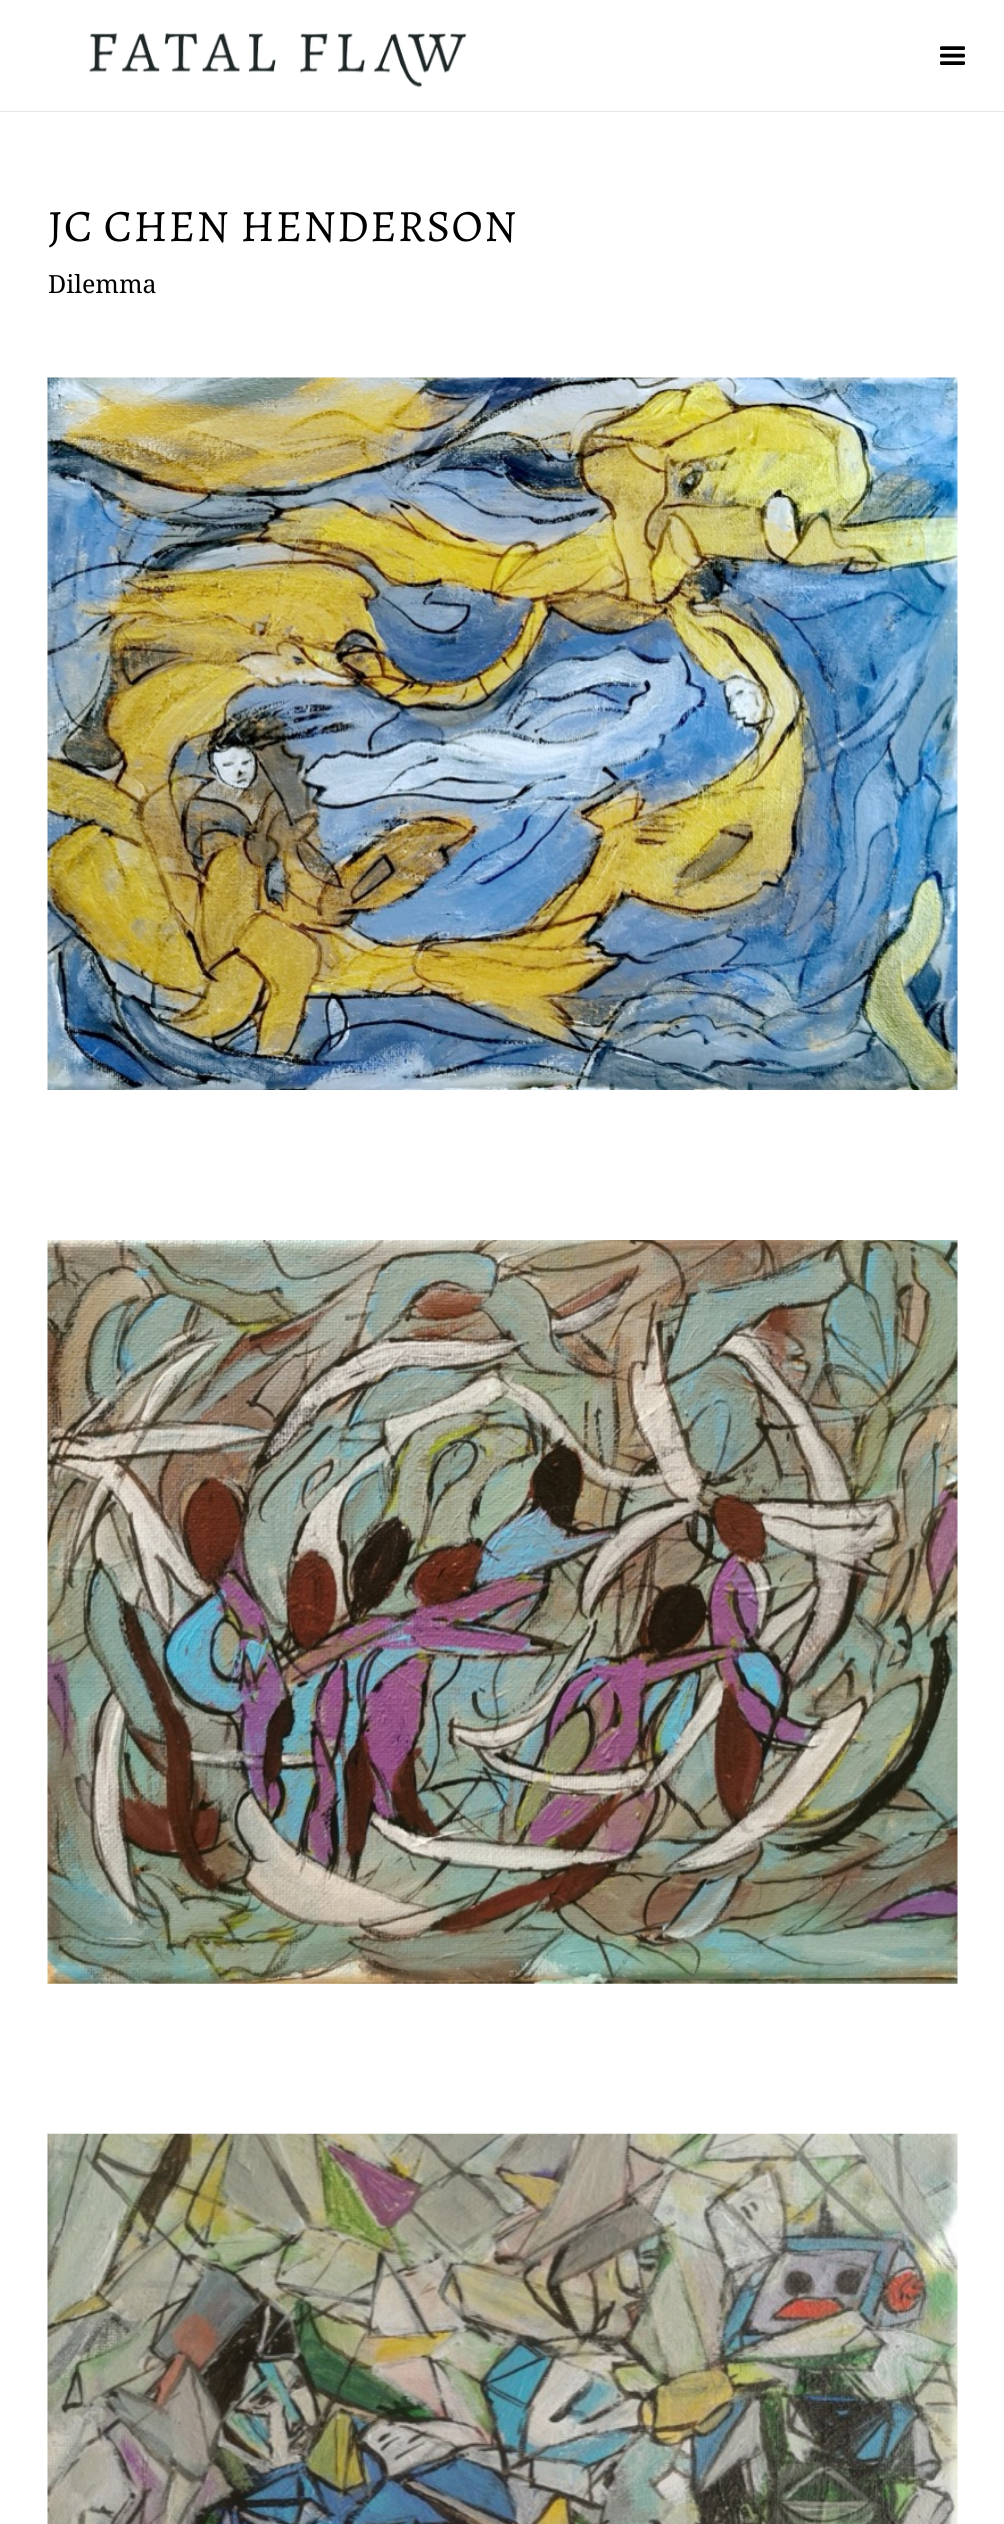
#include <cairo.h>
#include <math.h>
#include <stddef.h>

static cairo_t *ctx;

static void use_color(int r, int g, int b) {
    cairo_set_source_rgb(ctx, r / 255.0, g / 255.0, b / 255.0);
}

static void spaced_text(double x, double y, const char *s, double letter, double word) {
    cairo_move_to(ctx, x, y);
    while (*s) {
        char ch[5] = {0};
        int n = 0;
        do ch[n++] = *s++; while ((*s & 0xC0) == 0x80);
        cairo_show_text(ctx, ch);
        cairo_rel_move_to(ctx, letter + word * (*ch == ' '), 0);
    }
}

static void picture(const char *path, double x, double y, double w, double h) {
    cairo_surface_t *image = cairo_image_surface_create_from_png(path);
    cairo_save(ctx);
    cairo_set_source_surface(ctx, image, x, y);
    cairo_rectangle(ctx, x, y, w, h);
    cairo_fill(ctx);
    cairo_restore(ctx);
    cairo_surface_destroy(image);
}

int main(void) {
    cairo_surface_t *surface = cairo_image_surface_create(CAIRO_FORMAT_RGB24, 1004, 2524);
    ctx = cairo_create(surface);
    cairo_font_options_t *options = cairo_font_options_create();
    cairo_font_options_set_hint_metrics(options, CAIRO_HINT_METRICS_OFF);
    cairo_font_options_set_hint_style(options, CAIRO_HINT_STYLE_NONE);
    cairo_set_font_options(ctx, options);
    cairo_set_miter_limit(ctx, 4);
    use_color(255, 255, 255);
    cairo_paint(ctx);
    use_color(230, 230, 230);
    cairo_rectangle(ctx, 0, 111, 1004, 1);
    cairo_fill(ctx);
    picture("img1.png", 89, 32, 378, 56);
    picture("img2.png", 940, 46, 25, 19);
    cairo_select_font_face(ctx, "Alegreya SC", CAIRO_FONT_SLANT_NORMAL, CAIRO_FONT_WEIGHT_NORMAL);
    cairo_set_font_size(ctx, 45);
    use_color(0, 0, 0);
    spaced_text(48, 241, "JC CHEN HENDERSON", 1.25, 0);
    cairo_select_font_face(ctx, "Droid Serif", CAIRO_FONT_SLANT_NORMAL, CAIRO_FONT_WEIGHT_NORMAL);
    cairo_set_font_size(ctx, 25);
    cairo_move_to(ctx, 48, 293);
    cairo_show_text(ctx, "Dilemma");
    picture("img3.png", 47, 377, 911, 713);
    picture("img4.png", 47, 1240, 911, 744);
    picture("img5.png", 47, 2133, 911, 391);
    cairo_surface_write_to_png(surface, "result.png");
    cairo_font_options_destroy(options);
    cairo_destroy(ctx);
    cairo_surface_destroy(surface);
    return 0;
}
